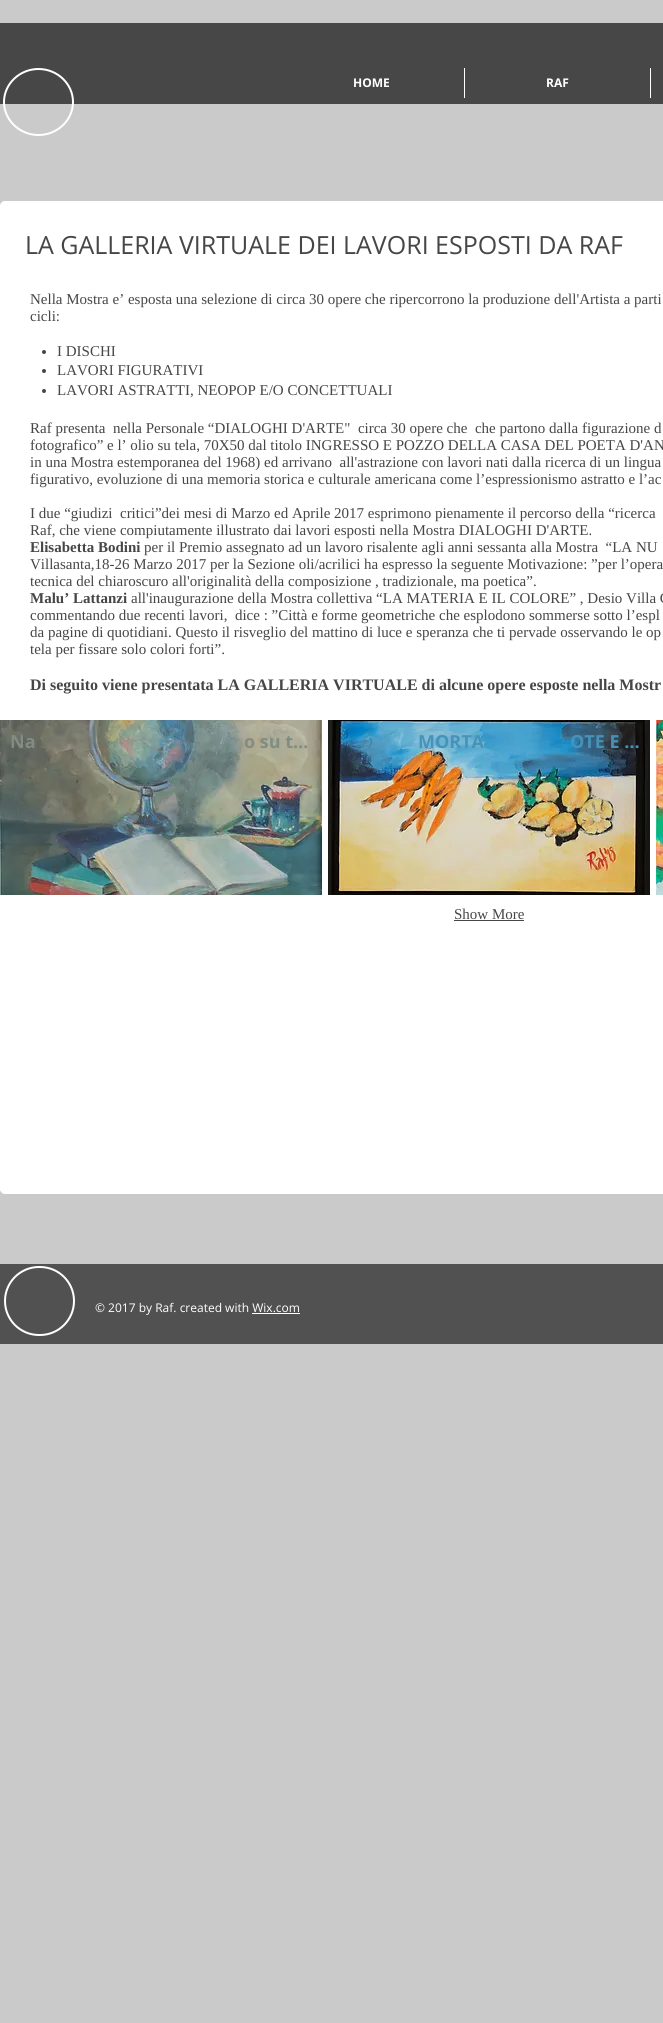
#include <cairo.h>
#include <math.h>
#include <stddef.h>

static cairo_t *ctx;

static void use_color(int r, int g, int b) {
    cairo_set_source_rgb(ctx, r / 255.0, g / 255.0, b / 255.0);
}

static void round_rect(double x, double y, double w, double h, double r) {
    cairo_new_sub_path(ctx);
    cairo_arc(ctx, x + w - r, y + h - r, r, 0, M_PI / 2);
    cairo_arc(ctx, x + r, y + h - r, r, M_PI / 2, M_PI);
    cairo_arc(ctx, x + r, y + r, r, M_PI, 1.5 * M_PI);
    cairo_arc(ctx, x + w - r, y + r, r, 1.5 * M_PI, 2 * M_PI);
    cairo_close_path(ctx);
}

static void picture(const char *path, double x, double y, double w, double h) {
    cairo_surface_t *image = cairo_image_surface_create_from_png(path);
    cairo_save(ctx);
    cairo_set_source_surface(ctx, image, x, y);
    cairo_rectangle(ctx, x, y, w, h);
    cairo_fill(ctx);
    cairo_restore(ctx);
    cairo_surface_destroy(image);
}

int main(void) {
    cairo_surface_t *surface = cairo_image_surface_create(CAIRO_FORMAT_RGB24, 663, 2023);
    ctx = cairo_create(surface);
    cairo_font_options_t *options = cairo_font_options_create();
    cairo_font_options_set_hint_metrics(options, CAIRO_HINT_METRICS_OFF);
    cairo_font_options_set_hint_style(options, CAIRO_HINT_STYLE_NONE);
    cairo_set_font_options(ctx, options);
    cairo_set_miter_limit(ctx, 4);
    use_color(202, 202, 202);
    cairo_paint(ctx);
    use_color(71, 71, 71);
    cairo_rectangle(ctx, 0, 23, 663, 81);
    cairo_fill(ctx);
    cairo_new_path(ctx);
    cairo_move_to(ctx, 38.5, 69);
    cairo_curve_to(ctx, 57.5, 69, 73, 84, 73, 102);
    cairo_curve_to(ctx, 73, 120, 57.5, 135, 38.5, 135);
    cairo_curve_to(ctx, 19.5, 135, 4, 120, 4, 102);
    cairo_curve_to(ctx, 4, 84, 19.5, 69, 38.5, 69);
    cairo_close_path(ctx);
    use_color(255, 255, 255);
    cairo_stroke(ctx);
    cairo_select_font_face(ctx, "Open Sans", CAIRO_FONT_SLANT_NORMAL, CAIRO_FONT_WEIGHT_BOLD);
    cairo_set_font_size(ctx, 12);
    cairo_move_to(ctx, 353, 87);
    cairo_show_text(ctx, "HOME");
    cairo_rectangle(ctx, 464, 68, 1, 30);
    cairo_fill(ctx);
    cairo_move_to(ctx, 546, 87);
    cairo_show_text(ctx, "RAF");
    cairo_rectangle(ctx, 650, 68, 1, 30);
    cairo_fill(ctx);
    round_rect(0.5, 201.5, 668, 992, 4.5);
    cairo_fill_preserve(ctx);
    cairo_set_line_width(ctx, 1);
    cairo_stroke(ctx);
    cairo_select_font_face(ctx, "Open Sans", CAIRO_FONT_SLANT_NORMAL, CAIRO_FONT_WEIGHT_NORMAL);
    cairo_set_font_size(ctx, 25);
    use_color(70, 70, 70);
    cairo_move_to(ctx, 25, 254);
    cairo_show_text(ctx, "LA GALLERIA VIRTUALE DEI LAVORI ESPOSTI DA RAF");
    cairo_select_font_face(ctx, "Liberation Serif", CAIRO_FONT_SLANT_NORMAL, CAIRO_FONT_WEIGHT_NORMAL);
    cairo_set_font_size(ctx, 15);
    cairo_move_to(ctx, 30, 304);
    cairo_show_text(ctx, "Nella Mostra e’ esposta una selezione di circa 30 opere che ripercorrono la produzione dell'Artista a parti");
    cairo_move_to(ctx, 30, 321);
    cairo_show_text(ctx, "cicli:");
    cairo_new_path(ctx);
    cairo_arc(ctx, 44, 352, 2, 0, 2 * M_PI);
    cairo_fill(ctx);
    cairo_move_to(ctx, 57, 356);
    cairo_show_text(ctx, "I DISCHI");
    cairo_new_path(ctx);
    cairo_arc(ctx, 44, 371, 2, 0, 2 * M_PI);
    cairo_fill(ctx);
    cairo_move_to(ctx, 57, 375);
    cairo_show_text(ctx, "LAVORI FIGURATIVI");
    cairo_new_path(ctx);
    cairo_arc(ctx, 44, 391, 2, 0, 2 * M_PI);
    cairo_fill(ctx);
    cairo_move_to(ctx, 57, 395);
    cairo_show_text(ctx, "LAVORI ASTRATTI, NEOPOP E/O CONCETTUALI");
    cairo_move_to(ctx, 30, 433);
    cairo_show_text(ctx, "Raf presenta  nella Personale “DIALOGHI D'ARTE\"  circa 30 opere che  che partono dalla figurazione d");
    cairo_move_to(ctx, 30, 450);
    cairo_show_text(ctx, "fotografico” e l’ olio su tela, 70X50 dal titolo INGRESSO E POZZO DELLA CASA DEL POETA D'AN");
    cairo_move_to(ctx, 30, 467);
    cairo_show_text(ctx, "in una Mostra estemporanea del 1968) ed arrivano  all'astrazione con lavori nati dalla ricerca di un lingua");
    cairo_move_to(ctx, 30, 484);
    cairo_show_text(ctx, "figurativo, evoluzione di una memoria storica e culturale americana come l’espressionismo astratto e l’ac");
    cairo_move_to(ctx, 30, 518);
    cairo_show_text(ctx, "I due “giudizi  critici”dei mesi di Marzo ed Aprile 2017 esprimono pienamente il percorso della “ricerca");
    cairo_move_to(ctx, 30, 535);
    cairo_show_text(ctx, "Raf, che viene compiutamente illustrato dai lavori esposti nella Mostra DIALOGHI D'ARTE.");
    cairo_select_font_face(ctx, "Liberation Serif", CAIRO_FONT_SLANT_NORMAL, CAIRO_FONT_WEIGHT_BOLD);
    cairo_move_to(ctx, 30, 552);
    cairo_show_text(ctx, "Elisabetta Bodini");
    cairo_select_font_face(ctx, "Liberation Serif", CAIRO_FONT_SLANT_NORMAL, CAIRO_FONT_WEIGHT_NORMAL);
    cairo_move_to(ctx, 144, 552);
    cairo_show_text(ctx, "per il Premio assegnato ad un lavoro risalente agli anni sessanta alla Mostra  “LA NU");
    cairo_move_to(ctx, 30, 569);
    cairo_show_text(ctx, "Villasanta,18-26 Marzo 2017 per la Sezione oli/acrilici ha espresso la seguente Motivazione: ”per l’opera");
    cairo_move_to(ctx, 30, 586);
    cairo_show_text(ctx, "tecnica del chiaroscuro all'originalità della composizione , tradizionale, ma poetica”.");
    cairo_select_font_face(ctx, "Liberation Serif", CAIRO_FONT_SLANT_NORMAL, CAIRO_FONT_WEIGHT_BOLD);
    cairo_move_to(ctx, 30, 603);
    cairo_show_text(ctx, "Malu’ Lattanzi");
    cairo_select_font_face(ctx, "Liberation Serif", CAIRO_FONT_SLANT_NORMAL, CAIRO_FONT_WEIGHT_NORMAL);
    cairo_move_to(ctx, 131, 603);
    cairo_show_text(ctx, "all'inaugurazione della Mostra collettiva “LA MATERIA E IL COLORE” , Desio Villa C");
    cairo_move_to(ctx, 30, 620);
    cairo_show_text(ctx, "commentando due recenti lavori,  dice : ”Città e forme geometriche che esplodono sommerse sotto l’espl");
    cairo_move_to(ctx, 30, 637);
    cairo_show_text(ctx, "da pagine di quotidiani. Questo il risveglio del mattino di luce e speranza che ti pervade osservando le op");
    cairo_move_to(ctx, 30, 654);
    cairo_show_text(ctx, "tela per fissare solo colori forti”.");
    cairo_select_font_face(ctx, "Liberation Serif", CAIRO_FONT_SLANT_NORMAL, CAIRO_FONT_WEIGHT_BOLD);
    cairo_set_font_size(ctx, 16);
    cairo_move_to(ctx, 30, 690);
    cairo_show_text(ctx, "Di seguito viene presentata LA GALLERIA VIRTUALE di alcune opere esposte nella Mostr");
    picture("img1.png", 0, 720, 322, 175);
    cairo_select_font_face(ctx, "Open Sans", CAIRO_FONT_SLANT_NORMAL, CAIRO_FONT_WEIGHT_BOLD);
    cairo_set_font_size(ctx, 18);
    use_color(129, 140, 131);
    cairo_move_to(ctx, 10, 748);
    cairo_show_text(ctx, "Na");
    cairo_move_to(ctx, 244, 748);
    cairo_show_text(ctx, "o su t…");
    picture("img2.png", 328, 720, 322, 175);
    use_color(73, 146, 183);
    cairo_move_to(ctx, 418, 748);
    cairo_show_text(ctx, "MORTA");
    cairo_move_to(ctx, 570, 748);
    cairo_show_text(ctx, "OTE E …");
    picture("img3.png", 656, 720, 7, 175);
    cairo_select_font_face(ctx, "Liberation Serif", CAIRO_FONT_SLANT_NORMAL, CAIRO_FONT_WEIGHT_NORMAL);
    cairo_set_font_size(ctx, 15);
    use_color(70, 70, 70);
    cairo_move_to(ctx, 454, 919);
    cairo_show_text(ctx, "Show More");
    cairo_rectangle(ctx, 454, 920, 70, 1);
    cairo_fill(ctx);
    use_color(81, 81, 81);
    cairo_rectangle(ctx, 0, 1264, 663, 80);
    cairo_fill(ctx);
    round_rect(5, 1267, 69, 68, 34);
    use_color(255, 255, 255);
    cairo_set_line_width(ctx, 2);
    cairo_stroke(ctx);
    cairo_select_font_face(ctx, "Open Sans", CAIRO_FONT_SLANT_NORMAL, CAIRO_FONT_WEIGHT_NORMAL);
    cairo_set_font_size(ctx, 12);
    cairo_move_to(ctx, 95, 1312);
    cairo_show_text(ctx, "© 2017 by Raf. created with Wix.com");
    cairo_rectangle(ctx, 252, 1313, 48, 1);
    cairo_fill(ctx);
    cairo_surface_write_to_png(surface, "result.png");
    cairo_font_options_destroy(options);
    cairo_destroy(ctx);
    cairo_surface_destroy(surface);
    return 0;
}
